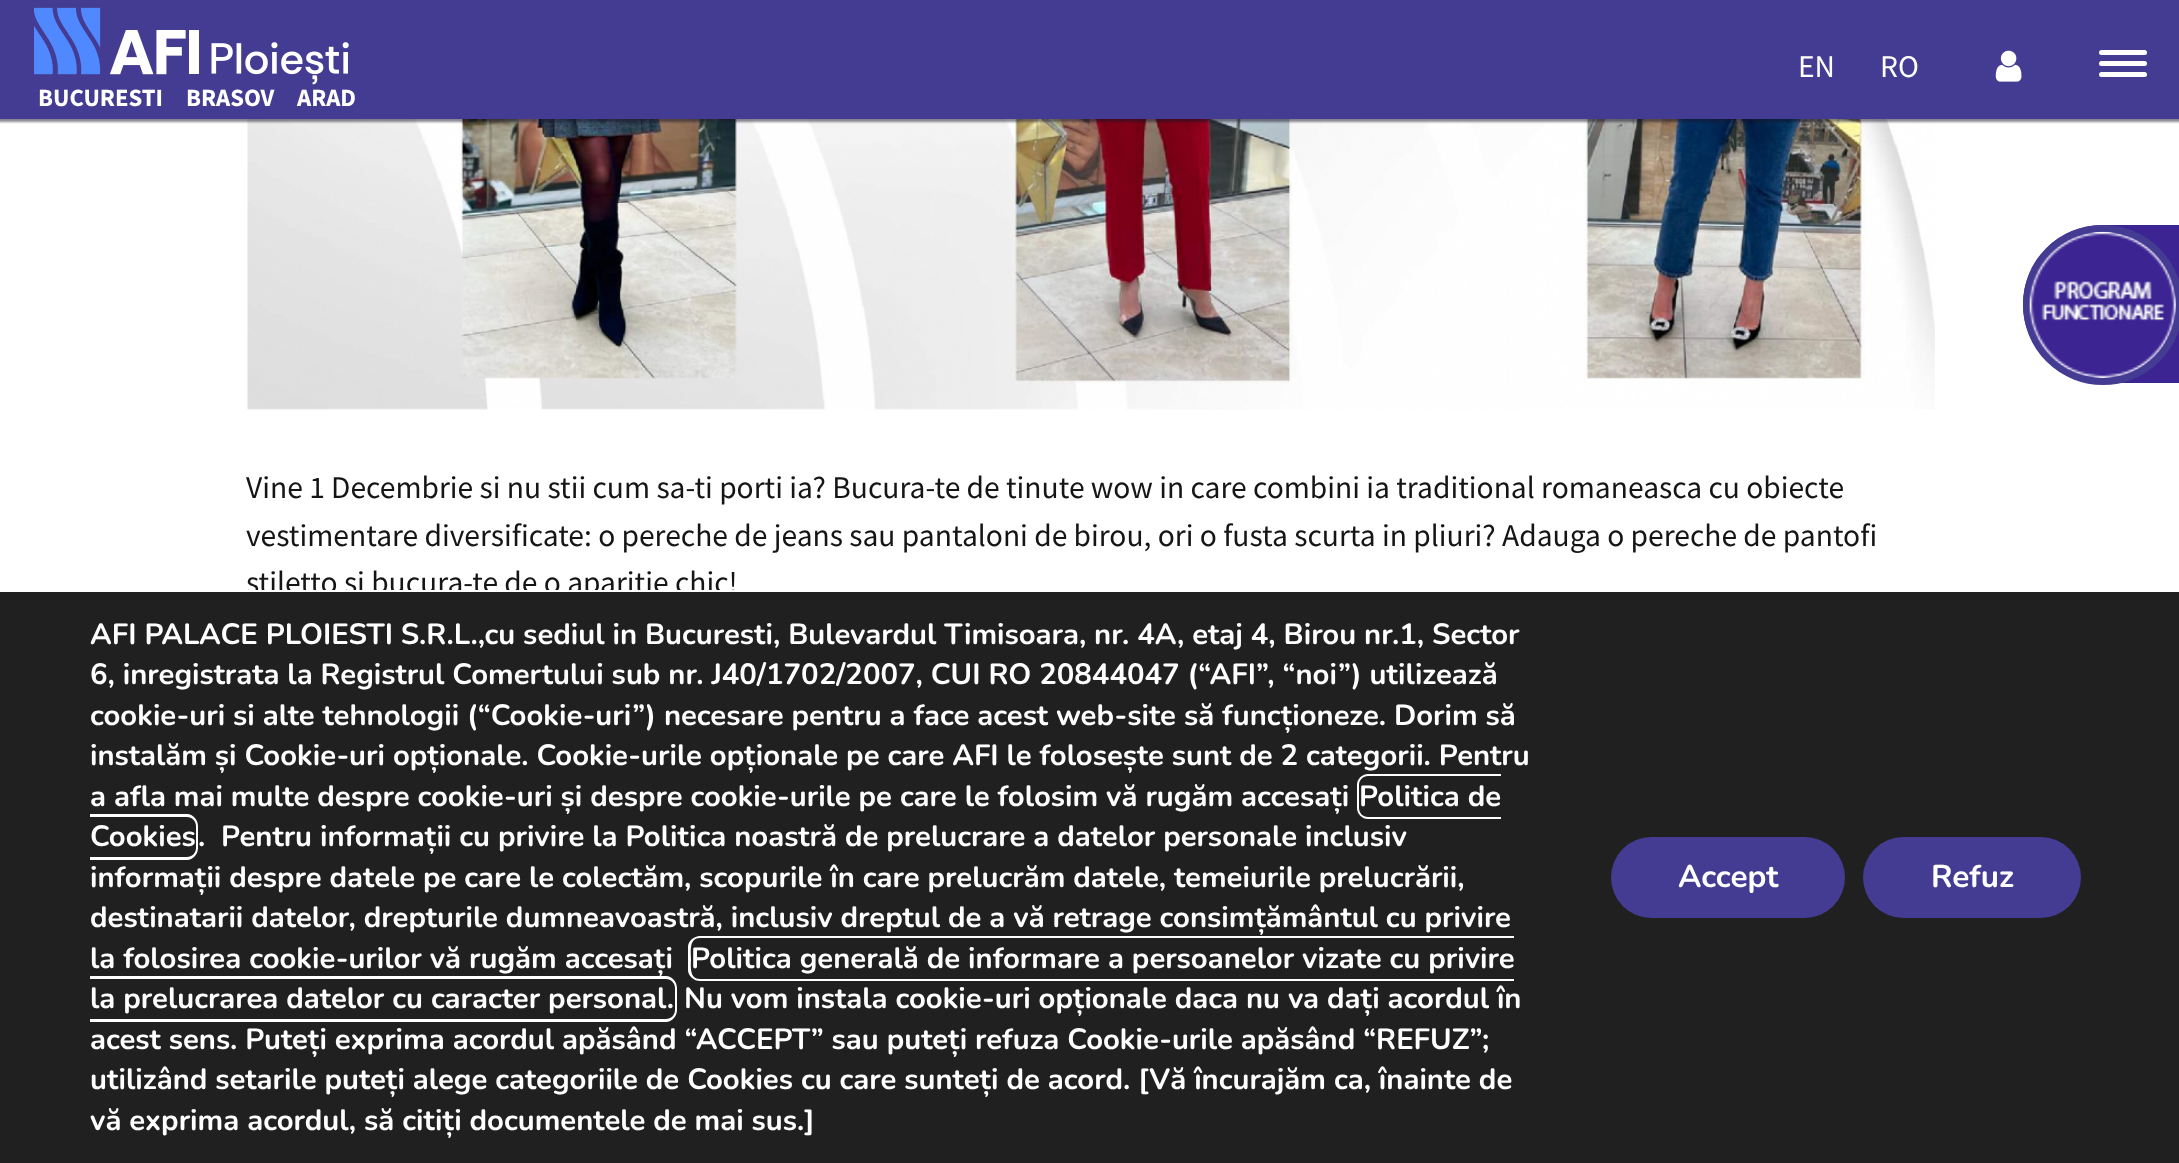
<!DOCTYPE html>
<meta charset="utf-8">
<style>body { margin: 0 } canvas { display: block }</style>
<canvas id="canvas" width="2179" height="1163"></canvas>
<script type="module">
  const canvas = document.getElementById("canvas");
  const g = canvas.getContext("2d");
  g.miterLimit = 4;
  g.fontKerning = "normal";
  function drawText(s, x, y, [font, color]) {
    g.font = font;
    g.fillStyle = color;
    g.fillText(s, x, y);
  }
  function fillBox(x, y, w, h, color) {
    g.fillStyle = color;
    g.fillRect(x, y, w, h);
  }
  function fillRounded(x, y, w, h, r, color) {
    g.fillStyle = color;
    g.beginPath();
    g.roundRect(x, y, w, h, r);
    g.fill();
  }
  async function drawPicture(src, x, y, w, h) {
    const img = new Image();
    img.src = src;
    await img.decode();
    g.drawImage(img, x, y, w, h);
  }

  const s1 = ["31.5px Source Sans Pro", "#FFFFFF"];
  const s2 = ["bold 24.75px Source Sans Pro", "#FFFFFF"];
  const s3 = ["31.5px Source Sans Pro", "#151515"];
  const s4 = ["bold 29.25px Nunito", "#FFFFFF"];
  const s5 = ["bold 31.5px Nunito", "#FFFFFF"];

  fillBox(0, 0, 2179, 1163, "#FFFFFF");
  await drawPicture("pic4.png", 247, 119, 1688, 291);
  g.fillStyle = "rgba(22, 20, 40, 0.5)";
  g.filter = "blur(1px)";
  g.beginPath();
  g.rect(-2, -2, 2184, 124);
  g.fill();
  g.filter = "none";
  fillBox(0, 0, 2179, 119, "#443C92");
  drawText("EN", 1798, 77, s1);
  drawText("RO", 1880, 77, s1);
  await drawPicture("pic1.png", 1995, 50, 27, 32);
  fillRounded(2099, 50, 48, 5, 2.5, "#FFFFFF");
  fillRounded(2099, 61, 48, 5, 2.5, "#FFFFFF");
  fillRounded(2099, 72, 48, 5, 2.5, "#FFFFFF");
  await drawPicture("pic2.png", 34, 7, 315, 78);
  drawText("BUCURESTI", 38, 106, s2);
  drawText("BRASOV", 186, 106, s2);
  drawText("ARAD", 297, 106, s2);
  fillRounded(2023, 225, 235, 158, 79, "#3C2493");
  g.beginPath();
  g.arc(2103, 305, 76.5, 0, Math.PI * 2);
  g.strokeStyle = "#443C92";
  g.lineWidth = 7;
  g.stroke();
  await drawPicture("pic3.png", 2029, 231, 147, 147);
  drawText("Vine 1 Decembrie si nu stii cum sa-ti porti ia? Bucura-te de tinute wow in care combini ia traditional romaneasca cu obiecte", 246, 498, s3);
  drawText("vestimentare diversificate: o pereche de jeans sau pantaloni de birou, ori o fusta scurta in pliuri? Adauga o pereche de pantofi", 246, 546, s3);
  drawText("stiletto si bucura-te de o aparitie chic!", 246, 593, s3);
  fillBox(0, 592, 2179, 571, "#202020");
  fillBox(247, 590, 489, 2, "#FFFFFF");
  drawText("AFI PALACE PLOIESTI S.R.L.,cu sediul in Bucuresti, Bulevardul Timisoara, nr. 4A, etaj 4, Birou nr.1, Sector", 90, 644, s4);
  drawText("6, inregistrata la Registrul Comertului sub nr. J40/1702/2007, CUI RO 20844047 (“AFI”, “noi”) utilizează", 90, 684, s4);
  drawText("cookie-uri si alte tehnologii (“Cookie-uri”) necesare pentru a face acest web-site să funcționeze. Dorim să", 90, 725, s4);
  drawText("instalăm și Cookie-uri opționale. Cookie-urile opționale pe care AFI le folosește sunt de 2 categorii. Pentru", 90, 765, s4);
  drawText("a afla mai multe despre cookie-uri și despre cookie-urile pe care le folosim vă rugăm accesați", 90, 806, s4);
  g.beginPath();
  g.moveTo(1368, 774);
  g.lineTo(1501, 774);
  g.lineTo(1501, 819);
  g.lineTo(1368, 819);
  g.bezierCurveTo(1362, 819, 1357, 814, 1357, 808);
  g.lineTo(1357, 785);
  g.bezierCurveTo(1357, 779, 1362, 774, 1368, 774);
  g.closePath();
  g.moveTo(1368, 776);
  g.lineTo(1501, 776);
  g.lineTo(1501, 817);
  g.lineTo(1368, 817);
  g.bezierCurveTo(1363, 817, 1359, 813, 1359, 808);
  g.lineTo(1359, 785);
  g.bezierCurveTo(1359, 780, 1363, 776, 1368, 776);
  g.closePath();
  g.fill("evenodd");
  drawText("Politica de", 1359, 806, s4);
  g.beginPath();
  g.moveTo(90, 814);
  g.lineTo(187, 814);
  g.bezierCurveTo(193, 814, 198, 820, 198, 826);
  g.lineTo(198, 848);
  g.bezierCurveTo(198, 854, 193, 860, 187, 860);
  g.lineTo(90, 860);
  g.closePath();
  g.moveTo(90, 817);
  g.lineTo(187, 817);
  g.bezierCurveTo(192, 817, 196, 821, 196, 826);
  g.lineTo(196, 848);
  g.bezierCurveTo(196, 853, 192, 857, 187, 857);
  g.lineTo(90, 857);
  g.closePath();
  g.fill("evenodd");
  drawText("Cookies", 90, 846, s4);
  drawText(".  Pentru informații cu privire la Politica noastră de prelucrare a datelor personale inclusiv", 198, 846, s4);
  drawText("informații despre datele pe care le colectăm, scopurile în care prelucrăm datele, temeiurile prelucrării,", 90, 887, s4);
  drawText("destinatarii datelor, drepturile dumneavoastră, inclusiv dreptul de a vă retrage consimțământul cu privire", 90, 927, s4);
  drawText("la folosirea cookie-urilor vă rugăm accesați", 90, 968, s4);
  g.beginPath();
  g.moveTo(700, 936);
  g.lineTo(1514, 936);
  g.lineTo(1514, 981);
  g.lineTo(700, 981);
  g.bezierCurveTo(694, 981, 688, 976, 688, 970);
  g.lineTo(688, 947);
  g.bezierCurveTo(688, 941, 694, 936, 700, 936);
  g.closePath();
  g.moveTo(700, 938);
  g.lineTo(1514, 938);
  g.lineTo(1514, 979);
  g.lineTo(700, 979);
  g.bezierCurveTo(689, 979, 691, 966, 691, 958);
  g.bezierCurveTo(691, 951, 689, 938, 700, 938);
  g.closePath();
  g.fill("evenodd");
  drawText("Politica generală de informare a persoanelor vizate cu privire", 691, 968, s4);
  g.beginPath();
  g.moveTo(90, 976);
  g.lineTo(666, 976);
  g.bezierCurveTo(672, 976, 677, 982, 677, 988);
  g.lineTo(677, 1010);
  g.bezierCurveTo(677, 1016, 672, 1022, 666, 1022);
  g.lineTo(90, 1022);
  g.closePath();
  g.moveTo(90, 979);
  g.lineTo(666, 979);
  g.bezierCurveTo(671, 979, 675, 983, 675, 988);
  g.lineTo(675, 1010);
  g.bezierCurveTo(675, 1015, 671, 1019, 666, 1019);
  g.lineTo(90, 1019);
  g.closePath();
  g.fill("evenodd");
  drawText("la prelucrarea datelor cu caracter personal.", 90, 1008, s4);
  drawText("Nu vom instala cookie-uri opționale daca nu va dați acordul în", 684, 1008, s4);
  drawText("acest sens. Puteți exprima acordul apăsând “ACCEPT” sau puteți refuza Cookie-urile apăsând “REFUZ”;", 90, 1049, s4);
  drawText("utilizând setarile puteți alege categoriile de Cookies cu care sunteți de acord. [Vă încurajăm ca, înainte de", 90, 1089, s4);
  drawText("vă exprima acordul, să citiți documentele de mai sus.]", 90, 1130, s4);
  fillRounded(1611, 837, 234, 81, 40.5, "#443C92");
  drawText("Accept", 1678, 887, s5);
  fillRounded(1863, 837, 218, 81, 40.5, "#443C92");
  drawText("Refuz", 1931, 887, s5);
</script>
